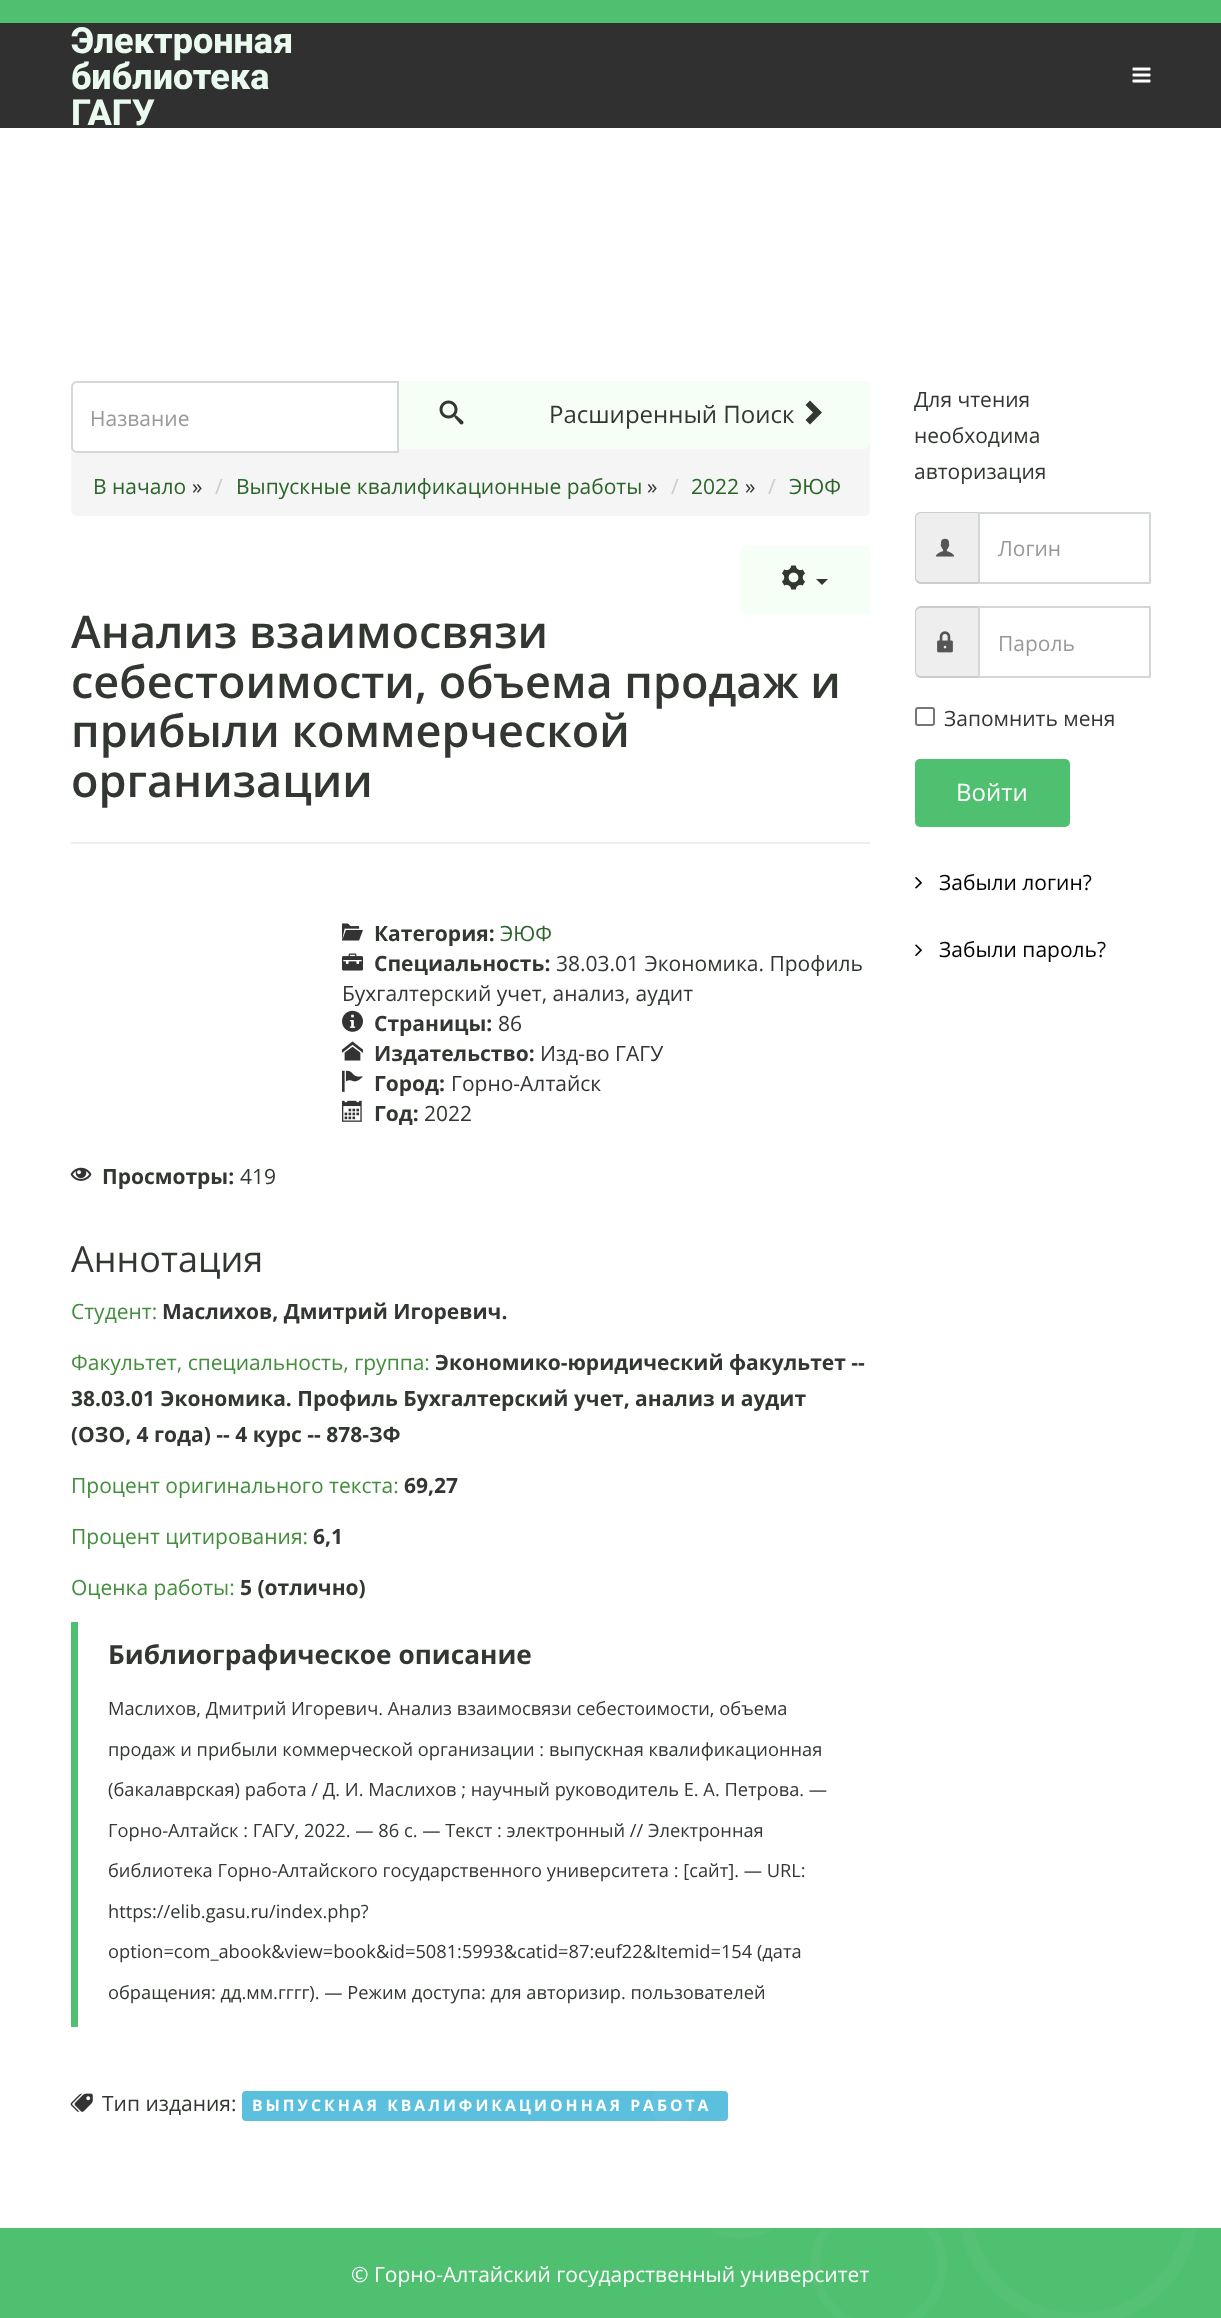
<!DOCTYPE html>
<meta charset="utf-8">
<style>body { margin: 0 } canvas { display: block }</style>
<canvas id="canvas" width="1221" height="2318"></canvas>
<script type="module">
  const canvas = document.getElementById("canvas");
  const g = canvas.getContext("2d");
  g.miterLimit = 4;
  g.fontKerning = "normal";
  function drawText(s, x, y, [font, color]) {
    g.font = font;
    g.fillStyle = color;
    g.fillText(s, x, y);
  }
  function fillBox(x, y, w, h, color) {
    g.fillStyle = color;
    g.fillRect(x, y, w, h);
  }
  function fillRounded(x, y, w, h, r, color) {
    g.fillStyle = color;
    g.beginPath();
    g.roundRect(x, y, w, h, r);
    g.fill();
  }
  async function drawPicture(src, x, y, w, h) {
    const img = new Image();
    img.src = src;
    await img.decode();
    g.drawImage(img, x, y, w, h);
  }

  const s1 = ["800 36px Roboto", "#EAFAEF"];
  const s2 = ["21px Open Sans", "#999999"];
  const s3 = ["24px Open Sans", "#323732"];
  const s4 = ["21px Open Sans", "#2B6428"];
  const s5 = ["21px Open Sans", "#323732"];
  const s6 = ["21px Open Sans", "#CCCCCC"];
  const s7 = ["600 45px Open Sans", "#323732"];
  const s8 = ["bold 21px Open Sans", "#323732"];
  const s9 = ["36px Open Sans", "#323732"];
  const s10 = ["21px Open Sans", "#438E3C"];
  const s11 = ["bold 26.25px Open Sans", "#323732"];
  const s12 = ["18.25px Open Sans", "#323732"];
  const s13 = ["bold 15.75px Open Sans", "#FFFFFF"];
  const s14 = ["24px Open Sans", "#FFFFFF"];
  const s15 = ["21px Open Sans", "#000000"];
  const s16 = ["21px Open Sans", "#FFFFFF"];

  fillBox(0, 0, 1221, 2318, "#FFFFFF");
  fillBox(0, 0, 1221, 23, "#4FBF70");
  fillBox(0, 23, 1221, 105, "#303030");
  drawText("Электронная", 71, 53, s1);
  drawText("библиотека", 71, 89, s1);
  drawText("ГАГУ", 71, 125, s1);
  await drawPicture("pic1.png", 1132, 67, 19, 16);
  fillRounded(71, 381, 799, 135, 6, "#F5F5F5");
  g.fillStyle = "#FFFFFF";
  g.beginPath();
  g.roundRect(72, 382, 326, 70, [5, 0, 0, 5]);
  g.fill();
  g.strokeStyle = "#D4D7D7";
  g.lineWidth = 2;
  g.stroke();
  drawText("Название", 90, 426, s2);
  fillBox(399, 381, 108, 68, "#F6FFF5");
  await drawPicture("pic2.png", 439, 400, 25, 25);
  g.beginPath();
  g.roundRect(507, 381, 363, 68, [0, 6, 6, 0]);
  g.fill();
  drawText("Расширенный Поиск", 549, 423, s3);
  g.beginPath();
  g.moveTo(810, 400.5);
  g.lineTo(822, 412.5);
  g.lineTo(810, 424.5);
  g.lineTo(805.5, 420);
  g.lineTo(813, 412.5);
  g.lineTo(805.5, 405);
  g.closePath();
  g.fill();
  drawText("В начало", 93, 494, s4);
  drawText("»", 192, 494, s5);
  drawText("/", 215, 494, s6);
  drawText("Выпускные квалификационные работы", 236, 494, s4);
  drawText("»", 647, 494, s5);
  drawText("/", 671, 494, s6);
  drawText("2022", 691, 494, s4);
  drawText("»", 745, 494, s5);
  drawText("/", 768, 494, s6);
  drawText("ЭЮФ", 789, 494, s4);
  fillRounded(740, 546, 130, 68, 5, "#F6FFF5");
  await drawPicture("pic3.png", 782, 565, 23, 25);
  g.fillStyle = "#323732";
  g.beginPath();
  g.moveTo(816, 579);
  g.lineTo(828, 579);
  g.lineTo(822, 585);
  g.closePath();
  g.fill();
  fillBox(71, 842, 799, 2, "#EEEEEE");
  drawText("Анализ взаимосвязи", 71, 648, s7);
  drawText("себестоимости, объема продаж и", 71, 698, s7);
  drawText("прибыли коммерческой", 71, 747, s7);
  drawText("организации", 71, 797, s7);
  await drawPicture("pic4.png", 342, 923, 21, 18);
  drawText("Категория:", 374, 941, s8);
  drawText("ЭЮФ", 500, 941, s4);
  await drawPicture("pic5.png", 342, 953, 21, 18);
  drawText("Специальность:", 374, 971, s8);
  drawText("38.03.01 Экономика. Профиль", 556, 971, s5);
  drawText("Бухгалтерский учет, анализ, аудит", 342, 1001, s5);
  await drawPicture("pic6.png", 342, 1010, 21, 22);
  drawText("Страницы:", 374, 1031, s8);
  drawText("86", 498, 1031, s5);
  await drawPicture("pic7.png", 342, 1041, 21, 20);
  drawText("Издательство:", 374, 1061, s8);
  drawText("Изд-во ГАГУ", 540, 1061, s5);
  await drawPicture("pic8.png", 342, 1070, 21, 22);
  drawText("Город:", 374, 1091, s8);
  drawText("Горно-Алтайск", 451, 1091, s5);
  await drawPicture("pic9.png", 342, 1100, 20, 22);
  drawText("Год:", 374, 1121, s8);
  drawText("2022", 424, 1121, s5);
  await drawPicture("pic10.png", 70, 1167, 22, 14);
  drawText("Просмотры:", 102, 1184, s8);
  drawText("419", 240, 1184, s5);
  drawText("Аннотация", 71, 1272, s9);
  drawText("Студент:", 71, 1319, s10);
  drawText("Маслихов, Дмитрий Игоревич.", 162, 1319, s8);
  drawText("Факультет, специальность, группа:", 71, 1370, s10);
  drawText("Экономико-юридический факультет --", 435, 1370, s8);
  drawText("38.03.01 Экономика. Профиль Бухгалтерский учет, анализ и аудит", 71, 1406, s8);
  drawText("(ОЗО, 4 года) -- 4 курс -- 878-ЗФ", 71, 1442, s8);
  drawText("Процент оригинального текста:", 71, 1493, s10);
  drawText("69,27", 404, 1493, s8);
  drawText("Процент цитирования:", 71, 1544, s10);
  drawText("6,1", 313, 1544, s8);
  drawText("Оценка работы:", 71, 1595, s10);
  drawText("5 (отлично)", 240, 1595, s8);
  fillBox(71, 1622, 7, 405, "#4FBF70");
  drawText("Библиографическое описание", 108, 1664, s11);
  drawText("Маслихов, Дмитрий Игоревич. Анализ взаимосвязи себестоимости, объема", 108, 1715, s12);
  drawText("продаж и прибыли коммерческой организации : выпускная квалификационная", 108, 1756, s12);
  drawText("(бакалаврская) работа / Д. И. Маслихов ; научный руководитель Е. А. Петрова. —", 108, 1796, s12);
  drawText("Горно-Алтайск : ГАГУ, 2022. — 86 с. — Текст : электронный // Электронная", 108, 1837, s12);
  drawText("библиотека Горно-Алтайского государственного университета : [сайт]. — URL:", 108, 1877, s12);
  drawText("https://elib.gasu.ru/index.php?", 108, 1918, s12);
  drawText("option=com_abook&view=book&id=5081:5993&catid=87:euf22&Itemid=154 (дата", 108, 1958, s12);
  drawText("обращения: дд.мм.гггг). — Режим доступа: для авторизир. пользователей", 108, 1999, s12);
  await drawPicture("pic11.png", 70, 2093, 23, 19);
  drawText("Тип издания:", 102, 2111, s5);
  fillRounded(242, 2091, 486, 30, 4, "#5BC0DE");
  g.letterSpacing = "3px";
  drawText("ВЫПУСКНАЯ КВАЛИФИКАЦИОННАЯ РАБОТА", 252, 2111, s13);
  g.letterSpacing = "0px";
  drawText("Для чтения", 914, 407, s5);
  drawText("необходима", 914, 443, s5);
  drawText("авторизация", 914, 479, s5);
  g.fillStyle = "#EEEEEE";
  g.beginPath();
  g.roundRect(915, 512, 63, 72, [6, 0, 0, 6]);
  g.fill();
  g.fillStyle = "#CCCCCC";
  g.beginPath();
  g.moveTo(921, 512);
  g.lineTo(978, 512);
  g.lineTo(978, 584);
  g.lineTo(921, 584);
  g.bezierCurveTo(918, 584, 915, 581, 915, 578);
  g.lineTo(915, 518);
  g.bezierCurveTo(915, 514, 918, 512, 921, 512);
  g.closePath();
  g.moveTo(921, 513);
  g.lineTo(978, 513);
  g.lineTo(978, 582);
  g.lineTo(921, 582);
  g.bezierCurveTo(919, 582, 916, 580, 916, 578);
  g.lineTo(916, 518);
  g.bezierCurveTo(916, 515, 919, 513, 921, 513);
  g.closePath();
  g.fill("evenodd");
  await drawPicture("pic12.png", 935, 538, 20, 19);
  g.beginPath();
  g.roundRect(979, 513, 171, 70, [0, 0.5, 0.5, 0]);
  g.stroke();
  drawText("Логин", 998, 556, s2);
  g.fillStyle = "#EEEEEE";
  g.beginPath();
  g.roundRect(915, 606, 63, 72, [6, 0, 0, 6]);
  g.fill();
  g.fillStyle = "#CCCCCC";
  g.beginPath();
  g.moveTo(921, 606);
  g.lineTo(978, 606);
  g.lineTo(978, 678);
  g.lineTo(921, 678);
  g.bezierCurveTo(918, 678, 915, 675, 915, 672);
  g.lineTo(915, 612);
  g.bezierCurveTo(915, 609, 918, 606, 921, 606);
  g.closePath();
  g.moveTo(921, 608);
  g.lineTo(978, 608);
  g.lineTo(978, 676);
  g.lineTo(921, 676);
  g.bezierCurveTo(919, 676, 916, 674, 916, 672);
  g.lineTo(916, 612);
  g.bezierCurveTo(916, 610, 919, 608, 921, 608);
  g.closePath();
  g.fill("evenodd");
  await drawPicture("pic13.png", 937, 631, 16, 22);
  g.beginPath();
  g.roundRect(979, 607, 171, 70, [0, 0.5, 0.5, 0]);
  g.stroke();
  drawText("Пароль", 998, 651, s2);
  g.beginPath();
  g.roundRect(916, 708, 18, 17, 2);
  g.strokeStyle = "#767676";
  g.stroke();
  drawText("Запомнить меня", 944, 726, s5);
  fillRounded(915, 759, 155, 68, 5, "#4FBF70");
  drawText("Войти", 956, 801, s14);
  await drawPicture("pic14.png", 915, 877, 7, 12);
  drawText("Забыли логин?", 939, 890, s15);
  await drawPicture("pic15.png", 915, 944, 7, 12);
  drawText("Забыли пароль?", 939, 957, s15);
  fillBox(0, 2228, 1221, 90, "#4FBF70");
  drawText("© Горно-Алтайский государственный университет", 351, 2282, s16);
  await drawPicture("pic16.png", 652, 2091, 545, 227);
</script>
